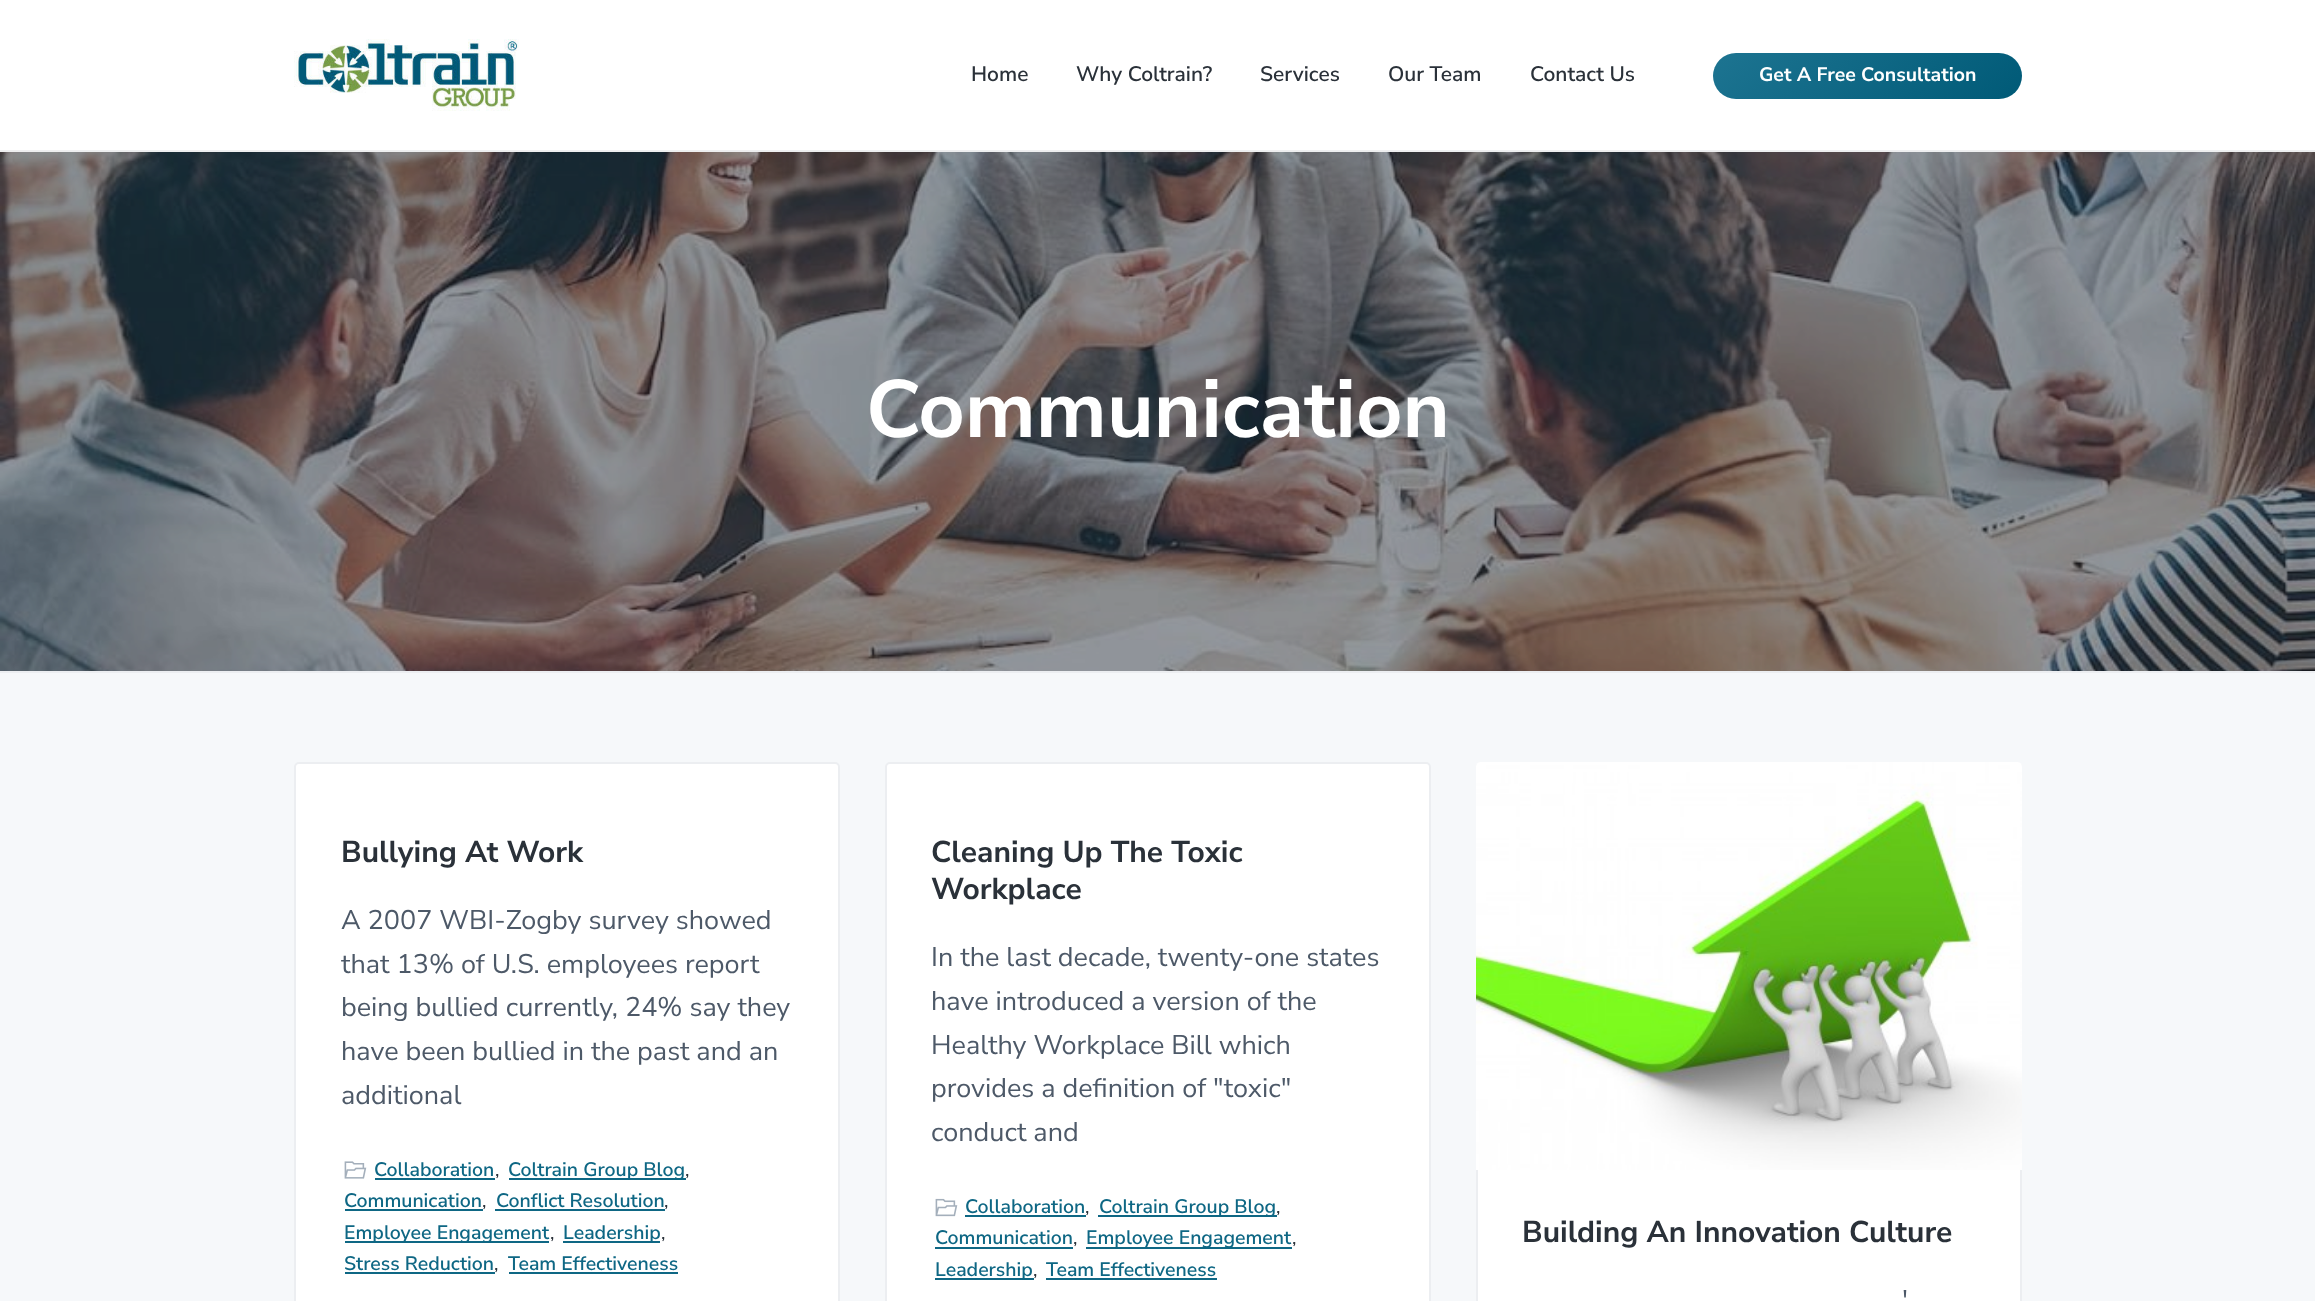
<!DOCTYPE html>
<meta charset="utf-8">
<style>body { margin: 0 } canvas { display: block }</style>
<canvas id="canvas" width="2315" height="1301"></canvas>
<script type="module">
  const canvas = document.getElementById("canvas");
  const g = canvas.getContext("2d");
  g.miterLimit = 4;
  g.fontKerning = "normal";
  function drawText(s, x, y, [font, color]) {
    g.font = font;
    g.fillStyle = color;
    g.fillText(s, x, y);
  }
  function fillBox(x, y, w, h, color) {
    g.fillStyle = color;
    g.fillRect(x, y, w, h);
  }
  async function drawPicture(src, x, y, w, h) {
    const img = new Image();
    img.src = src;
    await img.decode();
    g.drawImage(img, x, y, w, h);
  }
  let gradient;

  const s1 = ["600 21px Nunito Sans", "#2A3139"];
  const s2 = ["bold 19.5px Nunito Sans", "#FFFFFF"];
  const s3 = ["bold 81px Nunito Sans", "#FFFFFF"];
  const s4 = ["bold 30px Nunito Sans", "#2A3139"];
  const s5 = ["27px Nunito Sans", "#4D5968"];
  const s6 = ["600 19.5px Nunito Sans", "#0E6784"];
  const s7 = ["19.5px Nunito Sans", "#2A3139"];

  fillBox(0, 0, 2315, 1301, "#F6F8FA");
  fillBox(0, 0, 2315, 150, "#FFFFFF");
  fillBox(0, 150, 2315, 2, "#EEEFF0");
  await drawPicture("pic1.png", 294, 39, 225, 72);
  drawText("Home", 971, 81, s1);
  drawText("Why Coltrain?", 1076, 81, s1);
  drawText("Services", 1260, 81, s1);
  drawText("Our Team", 1388, 81, s1);
  drawText("Contact Us", 1530, 81, s1);
  gradient = g.createLinearGradient(1779, -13, 1956, 165);
  gradient.addColorStop(0, "#1D7491");
  gradient.addColorStop(1, "#005A77");
  g.fillStyle = gradient;
  g.beginPath();
  g.roundRect(1713, 53, 309, 46, 23);
  g.fill();
  drawText("Get A Free Consultation", 1759, 81, s2);
  await drawPicture("pic2.png", 0, 152, 2315, 519);
  fillBox(0, 671, 2315, 2, "#ECEEF1");
  drawText("Communication", 866, 437, s3);
  g.beginPath();
  g.roundRect(295, 763, 544, 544, 4);
  g.fill();
  g.strokeStyle = "#ECEEF1";
  g.lineWidth = 2;
  g.stroke();
  drawText("Bullying At Work", 341, 862, s4);
  drawText("A 2007 WBI-Zogby survey showed", 341, 929, s5);
  drawText("that 13% of U.S. employees report", 341, 973, s5);
  drawText("being bullied currently, 24% say they", 341, 1016, s5);
  drawText("have been bullied in the past and an", 341, 1060, s5);
  drawText("additional", 341, 1104, s5);
  await drawPicture("pic3.png", 344, 1161, 23, 18);
  drawText("Collaboration", 374, 1176, s6);
  fillBox(375, 1178, 120, 2, "#0E6784");
  drawText(",", 495, 1176, s7);
  fillBox(509, 1178, 177, 2, "#0E6784");
  drawText("Coltrain Group Blog", 508, 1176, s6);
  drawText(",", 685, 1176, s7);
  drawText("Communication", 344, 1207, s6);
  fillBox(345, 1209, 138, 2, "#0E6784");
  drawText(",", 482, 1207, s7);
  drawText("Conflict Resolution", 496, 1207, s6);
  fillBox(495, 1209, 170, 2, "#0E6784");
  drawText(",", 664, 1207, s7);
  fillBox(345, 1241, 204, 2, "#0E6784");
  drawText("Employee Engagement", 344, 1239, s6);
  drawText(",", 550, 1239, s7);
  fillBox(563, 1241, 97, 2, "#0E6784");
  drawText("Leadership", 563, 1239, s6);
  drawText(",", 661, 1239, s7);
  drawText("Stress Reduction", 344, 1270, s6);
  fillBox(345, 1272, 150, 2, "#0E6784");
  drawText(",", 494, 1270, s7);
  drawText("Team Effectiveness", 508, 1270, s6);
  fillBox(509, 1272, 169, 2, "#0E6784");
  g.fillStyle = "#FFFFFF";
  g.beginPath();
  g.roundRect(886, 763, 544, 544, 4);
  g.fill();
  g.stroke();
  drawText("Cleaning Up The Toxic", 931, 862, s4);
  drawText("Workplace", 931, 899, s4);
  drawText("In the last decade, twenty-one states", 931, 966, s5);
  drawText("have introduced a version of the", 931, 1010, s5);
  drawText("Healthy Workplace Bill which", 931, 1054, s5);
  drawText("provides a definition of \"toxic\"", 931, 1097, s5);
  drawText("conduct and", 931, 1141, s5);
  await drawPicture("pic4.png", 935, 1198, 23, 19);
  drawText("Collaboration", 965, 1213, s6);
  fillBox(965, 1215, 121, 2, "#0E6784");
  drawText(",", 1085, 1213, s7);
  fillBox(1098, 1215, 179, 2, "#0E6784");
  drawText("Coltrain Group Blog", 1099, 1213, s6);
  drawText(",", 1276, 1213, s7);
  drawText("Communication", 935, 1244, s6);
  fillBox(935, 1247, 138, 2, "#0E6784");
  drawText(",", 1073, 1244, s7);
  fillBox(1086, 1247, 206, 2, "#0E6784");
  drawText("Employee Engagement", 1086, 1244, s6);
  drawText(",", 1292, 1244, s7);
  fillBox(935, 1278, 99, 2, "#0E6784");
  drawText("Leadership", 935, 1276, s6);
  drawText(",", 1033, 1276, s7);
  drawText("Team Effectiveness", 1046, 1276, s6);
  fillBox(1046, 1278, 171, 2, "#0E6784");
  g.fillStyle = "#FFFFFF";
  g.beginPath();
  g.roundRect(1477, 763, 544, 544, 4);
  g.fill();
  g.stroke();
  await drawPicture("pic5.png", 1476, 762, 546, 408);
  drawText("Building An Innovation Culture", 1522, 1242, s4);
  drawText("'", 1902, 1309, s5);
</script>
